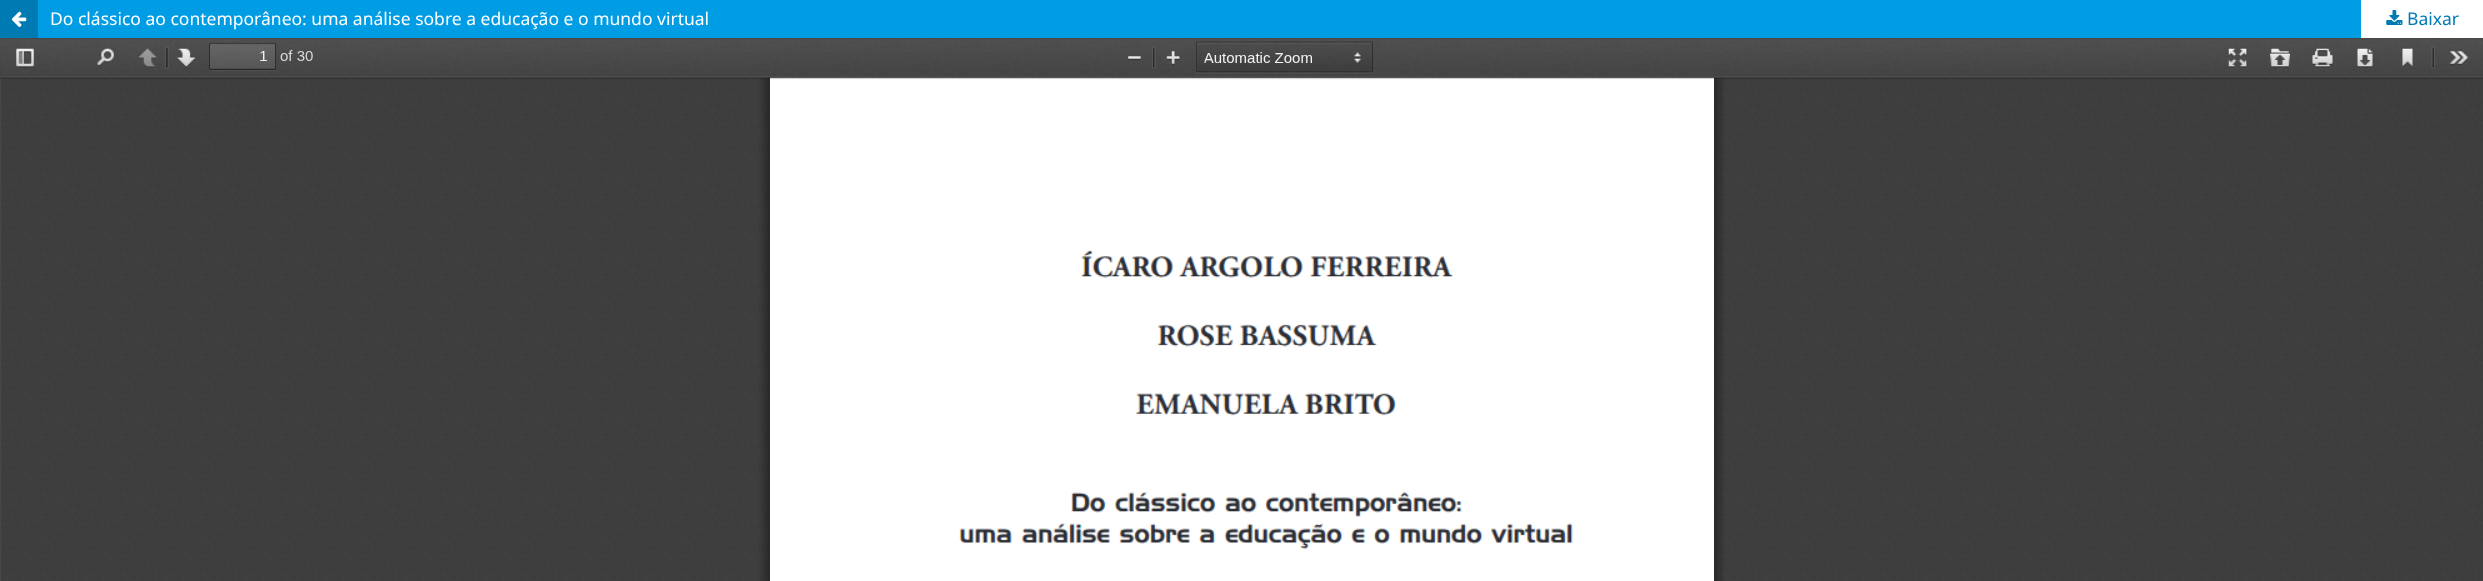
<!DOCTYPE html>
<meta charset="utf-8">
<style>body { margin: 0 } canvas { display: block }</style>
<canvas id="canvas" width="2483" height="581"></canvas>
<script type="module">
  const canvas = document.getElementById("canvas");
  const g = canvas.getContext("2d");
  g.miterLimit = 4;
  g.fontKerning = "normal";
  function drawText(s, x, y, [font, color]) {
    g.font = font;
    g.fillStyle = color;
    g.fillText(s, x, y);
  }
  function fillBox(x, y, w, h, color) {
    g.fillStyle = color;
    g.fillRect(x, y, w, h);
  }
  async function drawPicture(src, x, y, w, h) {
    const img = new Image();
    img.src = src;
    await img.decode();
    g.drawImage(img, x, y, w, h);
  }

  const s1 = ["17.5px Noto Sans", "#FFFFFF"];
  const s2 = ["17.5px Noto Sans", "#007AB2"];

  fillBox(0, 0, 2483, 581, "#FFFFFF");
  fillBox(38, 0, 2323, 38, "#009DE5");
  fillBox(0, 0, 38, 38, "#007AB2");
  await drawPicture("pic1.png", 11, 11, 16, 16);
  drawText("Do clássico ao contemporâneo: uma análise sobre a educação e o mundo virtual", 50, 25, s1);
  await drawPicture("pic2.png", 2386, 10, 17, 15);
  drawText("Baixar", 2407, 25, s2);
  await drawPicture("pic3.png", 0, 38, 2483, 543);
</script>
